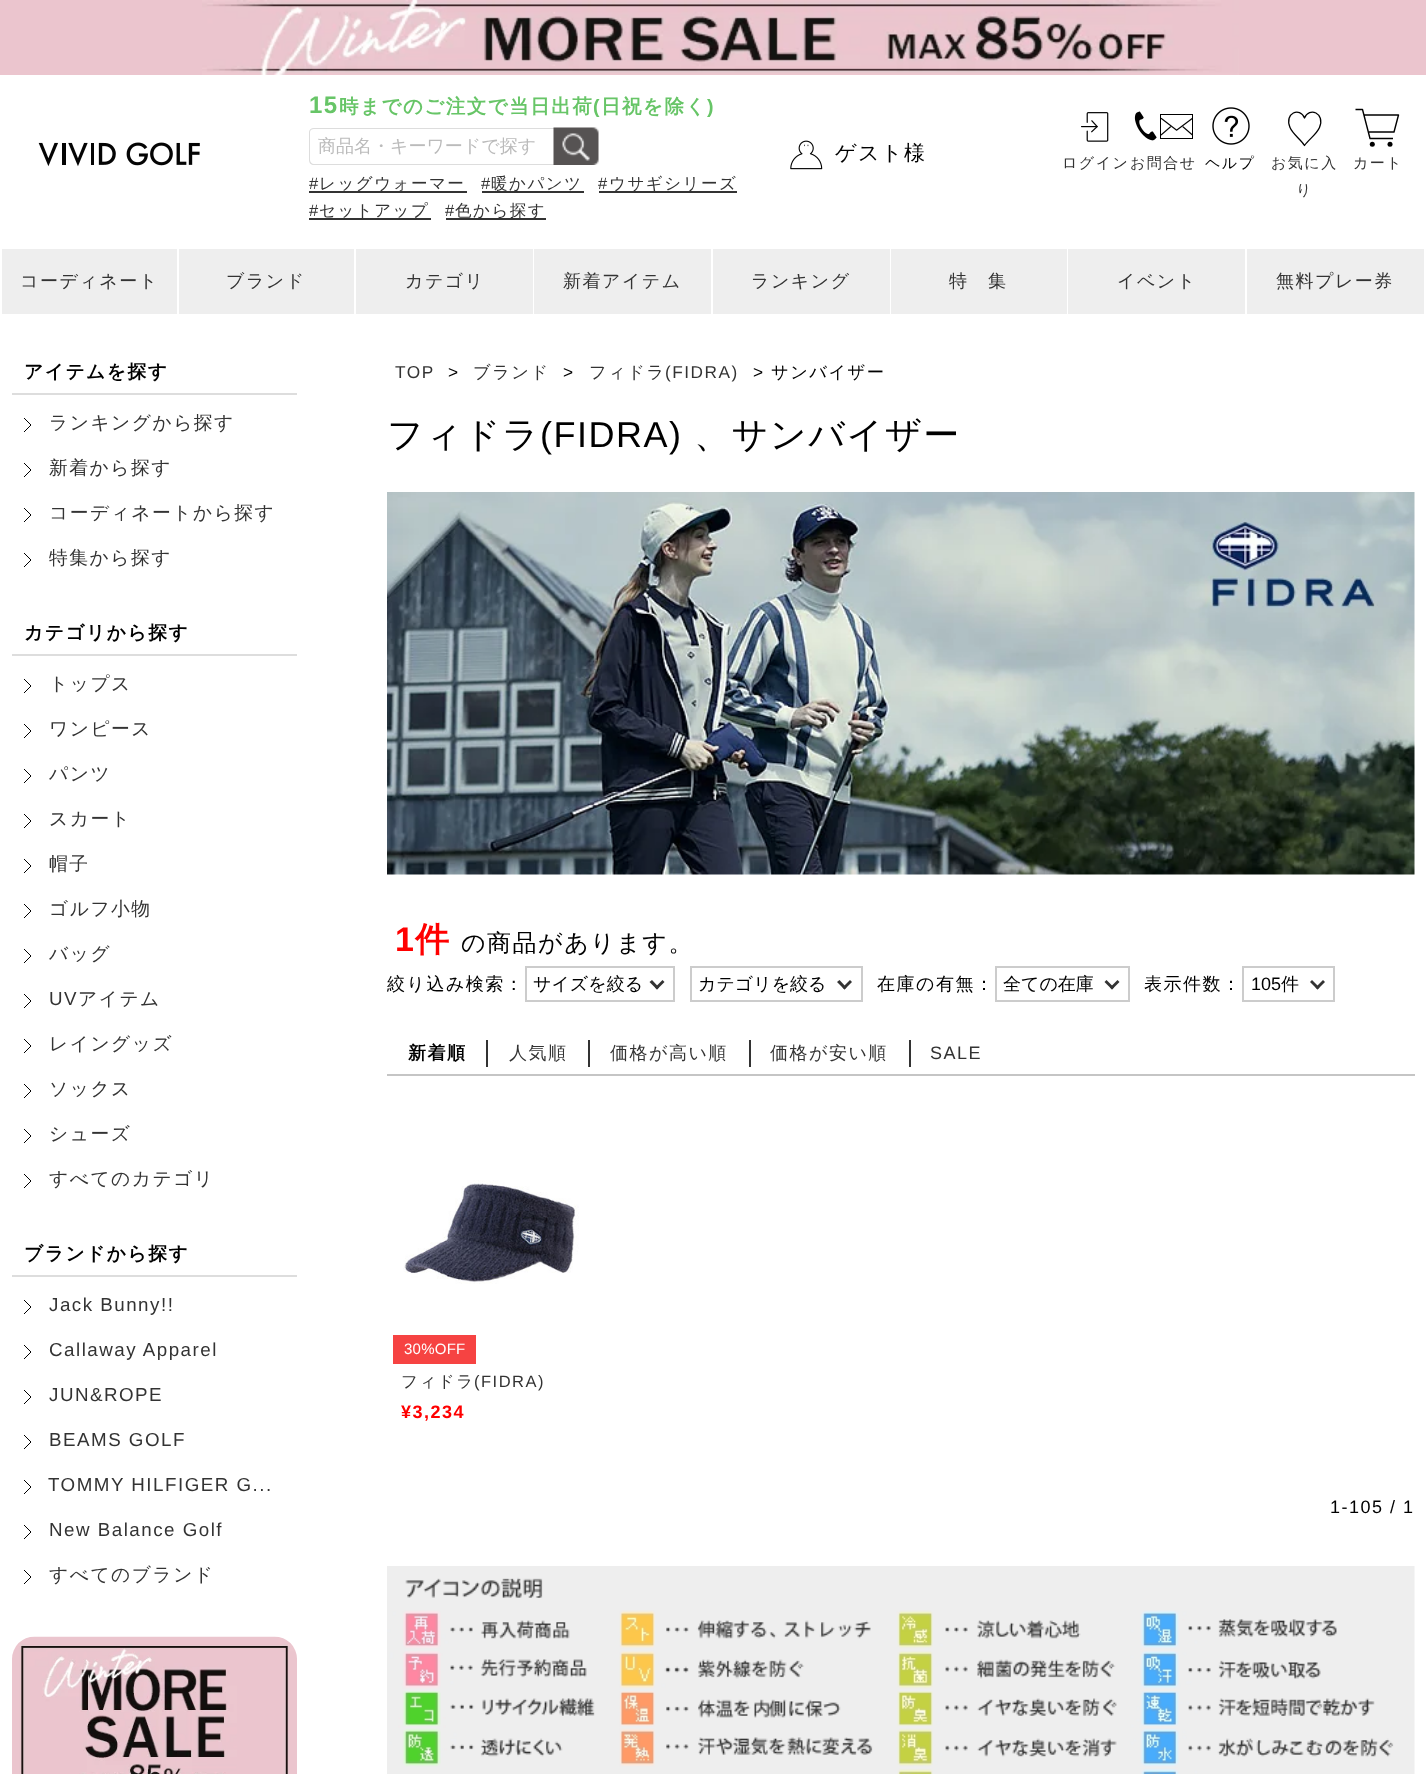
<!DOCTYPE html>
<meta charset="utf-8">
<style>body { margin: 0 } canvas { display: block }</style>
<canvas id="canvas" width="1426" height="1774"></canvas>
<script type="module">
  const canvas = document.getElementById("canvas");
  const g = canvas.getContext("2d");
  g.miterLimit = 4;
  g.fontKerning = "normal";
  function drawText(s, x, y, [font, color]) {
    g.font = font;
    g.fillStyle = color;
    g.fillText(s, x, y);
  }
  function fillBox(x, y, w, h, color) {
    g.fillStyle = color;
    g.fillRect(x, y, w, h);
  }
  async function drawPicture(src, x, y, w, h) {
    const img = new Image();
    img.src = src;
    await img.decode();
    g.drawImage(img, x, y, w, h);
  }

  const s1 = ["bold 24px Liberation Sans", "#67C567"];
  const s2 = ["bold 19.5px WenQuanYi Zen Hei", "#67C567"];
  const s3 = ["bold 19.5px Liberation Sans", "#67C567"];
  const s4 = ["500 18px WenQuanYi Zen Hei", "#BBBBBB"];
  const s5 = ["16.5px Liberation Sans", "#333333"];
  const s6 = ["500 16.5px WenQuanYi Zen Hei", "#333333"];
  const s7 = ["500 21px WenQuanYi Zen Hei", "#000000"];
  const s8 = ["500 15px WenQuanYi Zen Hei", "#333333"];
  const s9 = ["500 15px WenQuanYi Zen Hei", "#000000"];
  const s10 = ["500 18px WenQuanYi Zen Hei", "#333333"];
  const s11 = ["bold 18.75px WenQuanYi Zen Hei", "#000000"];
  const s12 = ["500 18.75px WenQuanYi Zen Hei", "#333333"];
  const s13 = ["18.75px Liberation Sans", "#333333"];
  const s14 = ["17.25px Liberation Sans", "#333333"];
  const s15 = ["17.25px Liberation Sans", "#000000"];
  const s16 = ["500 17.25px WenQuanYi Zen Hei", "#333333"];
  const s17 = ["500 17.25px WenQuanYi Zen Hei", "#000000"];
  const s18 = ["500 36px WenQuanYi Zen Hei", "#000000"];
  const s19 = ["36px Liberation Sans", "#000000"];
  const s20 = ["bold 34px Liberation Sans", "#FF0000"];
  const s21 = ["bold 34px WenQuanYi Zen Hei", "#FF0000"];
  const s22 = ["500 24px WenQuanYi Zen Hei", "#000000"];
  const s23 = ["500 18px WenQuanYi Zen Hei", "#000000"];
  const s24 = ["18px Liberation Sans", "#000000"];
  const s25 = ["bold 18px WenQuanYi Zen Hei", "#000000"];
  const s26 = ["18px Liberation Sans", "#333333"];
  const s27 = ["15px Liberation Sans", "#FFFFFF"];
  const s28 = ["bold 18px Liberation Sans", "#FF0000"];

  fillBox(0, 0, 1426, 1774, "#FFFFFF");
  fillBox(0, 0, 1426, 75, "#EBC5CE");
  await drawPicture("pic1.png", 202, 0, 1037, 75);
  await drawPicture("pic2.png", 38, 142, 162, 25);
  g.letterSpacing = "1.5px";
  drawText("15", 309, 113, s1);
  drawText("時までのご注文で当日出荷", 339, 113, s2);
  drawText("(", 593, 113, s3);
  drawText("日祝を除く", 601, 113, s2);
  drawText(")", 707, 113, s3);
  g.fillStyle = "#DDDDDD";
  g.beginPath();
  g.moveTo(314, 128);
  g.lineTo(554, 128);
  g.lineTo(554, 165);
  g.lineTo(314, 165);
  g.bezierCurveTo(311, 165, 309, 163, 309, 160);
  g.lineTo(309, 132);
  g.bezierCurveTo(309, 130, 311, 128, 314, 128);
  g.closePath();
  g.moveTo(314, 129);
  g.lineTo(554, 129);
  g.lineTo(554, 164);
  g.lineTo(314, 164);
  g.bezierCurveTo(312, 164, 310, 162, 310, 160);
  g.lineTo(310, 132);
  g.bezierCurveTo(310, 130, 312, 129, 314, 129);
  g.closePath();
  g.fill("evenodd");
  g.letterSpacing = "0px";
  drawText("商品名・キーワードで探す", 318, 152, s4);
  await drawPicture("pic3.png", 553, 127, 46, 38);
  g.letterSpacing = "1.5px";
  drawText("#", 309, 189, s5);
  fillBox(309, 191, 158, 2, "#333333");
  drawText("レッグウォーマー", 319, 189, s6);
  drawText("#", 481, 189, s5);
  fillBox(482, 191, 102, 2, "#333333");
  drawText("暖かパンツ", 491, 189, s6);
  drawText("#", 598, 189, s5);
  fillBox(599, 191, 138, 2, "#333333");
  drawText("ウサギシリーズ", 609, 189, s6);
  drawText("#", 309, 216, s5);
  fillBox(309, 218, 122, 2, "#333333");
  drawText("セットアップ", 319, 216, s6);
  drawText("#", 445, 216, s5);
  fillBox(446, 218, 100, 2, "#333333");
  drawText("色から探す", 455, 216, s6);
  await drawPicture("pic4.png", 790, 140, 33, 30);
  drawText("ゲスト様", 835, 160, s7);
  await drawPicture("pic5.png", 1081, 112, 28, 30);
  drawText("ログイン", 1062, 168, s8);
  await drawPicture("pic6.png", 1134, 111, 59, 30);
  drawText("お問合せ", 1130, 168, s8);
  await drawPicture("pic7.png", 1212, 107, 38, 38);
  drawText("ヘルプ", 1205, 168, s9);
  g.beginPath();
  g.moveTo(1304.5, 118);
  g.bezierCurveTo(1309, 106.5, 1325.5, 113, 1319.5, 127.5);
  g.bezierCurveTo(1316.5, 134.5, 1309, 139, 1304.5, 145.5);
  g.bezierCurveTo(1300.5, 139, 1293, 134.5, 1290, 127.5);
  g.bezierCurveTo(1284, 113, 1300, 106.5, 1304.5, 118);
  g.closePath();
  g.strokeStyle = "#000000";
  g.lineWidth = 1.3;
  g.lineJoin = "round";
  g.stroke();
  drawText("お気に入", 1271, 168, s8);
  drawText("り", 1296, 195, s8);
  g.beginPath();
  g.moveTo(1355.5, 109.5);
  g.lineTo(1362.5, 109.5);
  g.lineTo(1370, 138.5);
  g.lineTo(1393, 138.5);
  g.moveTo(1364.5, 115);
  g.lineTo(1398.5, 115);
  g.lineTo(1394, 132);
  g.lineTo(1369, 132);
  g.lineWidth = 1.4;
  g.stroke();
  g.fillStyle = "#000000";
  g.beginPath();
  g.arc(1372.3, 144.3, 2.5, 0, Math.PI * 2);
  g.fill();
  g.beginPath();
  g.arc(1390, 144.3, 2.5, 0, Math.PI * 2);
  g.fill();
  drawText("カート", 1353, 168, s8);
  fillBox(2, 249, 1422, 65, "#EEEEEE");
  fillBox(177, 249, 2, 65, "#FFFFFF");
  drawText("コーディネート", 20, 287, s10);
  fillBox(354, 249, 2, 65, "#FFFFFF");
  drawText("ブランド", 226, 287, s10);
  fillBox(533, 249, 1, 65, "#FFFFFF");
  drawText("カテゴリ", 405, 287, s10);
  fillBox(711, 249, 2, 65, "#FFFFFF");
  drawText("新着アイテム", 563, 287, s10);
  fillBox(890, 249, 1, 65, "#FFFFFF");
  drawText("ランキング", 751, 287, s10);
  fillBox(1067, 249, 1, 65, "#FFFFFF");
  drawText("特　集", 949, 287, s10);
  fillBox(1245, 249, 2, 65, "#FFFFFF");
  drawText("イベント", 1117, 287, s10);
  drawText("無料プレー券", 1276, 287, s10);
  fillBox(12, 393, 285, 2, "#DDDDDD");
  drawText("アイテムを探す", 24, 378, s11);
  g.beginPath();
  g.moveTo(24, 418);
  g.lineTo(31, 425);
  g.lineTo(24, 432);
  g.lineWidth = 1;
  g.stroke();
  drawText("ランキングから探す", 49, 429, s12);
  g.beginPath();
  g.moveTo(24, 463);
  g.lineTo(31, 470);
  g.lineTo(24, 477);
  g.stroke();
  drawText("新着から探す", 49, 474, s12);
  g.beginPath();
  g.moveTo(24, 508);
  g.lineTo(31, 515);
  g.lineTo(24, 522);
  g.stroke();
  drawText("コーディネートから探す", 49, 519, s12);
  g.beginPath();
  g.moveTo(24, 553);
  g.lineTo(31, 560);
  g.lineTo(24, 567);
  g.stroke();
  drawText("特集から探す", 49, 564, s12);
  fillBox(12, 654, 285, 2, "#DDDDDD");
  drawText("カテゴリから探す", 24, 639, s11);
  g.beginPath();
  g.moveTo(24, 679);
  g.lineTo(31, 686);
  g.lineTo(24, 693);
  g.stroke();
  drawText("トップス", 49, 690, s12);
  g.beginPath();
  g.moveTo(24, 724);
  g.lineTo(31, 731);
  g.lineTo(24, 738);
  g.stroke();
  drawText("ワンピース", 49, 735, s12);
  g.beginPath();
  g.moveTo(24, 769);
  g.lineTo(31, 776);
  g.lineTo(24, 783);
  g.stroke();
  drawText("パンツ", 49, 780, s12);
  g.beginPath();
  g.moveTo(24, 814);
  g.lineTo(31, 821);
  g.lineTo(24, 828);
  g.stroke();
  drawText("スカート", 49, 825, s12);
  g.beginPath();
  g.moveTo(24, 859);
  g.lineTo(31, 866);
  g.lineTo(24, 873);
  g.stroke();
  drawText("帽子", 49, 870, s12);
  g.beginPath();
  g.moveTo(24, 904);
  g.lineTo(31, 911);
  g.lineTo(24, 918);
  g.stroke();
  drawText("ゴルフ小物", 49, 915, s12);
  g.beginPath();
  g.moveTo(24, 949);
  g.lineTo(31, 956);
  g.lineTo(24, 963);
  g.stroke();
  drawText("バッグ", 49, 960, s12);
  g.beginPath();
  g.moveTo(24, 994);
  g.lineTo(31, 1001);
  g.lineTo(24, 1008);
  g.stroke();
  drawText("UV", 49, 1005, s13);
  drawText("アイテム", 78, 1005, s12);
  g.beginPath();
  g.moveTo(24, 1039);
  g.lineTo(31, 1046);
  g.lineTo(24, 1053);
  g.stroke();
  drawText("レイングッズ", 49, 1050, s12);
  g.beginPath();
  g.moveTo(24, 1084);
  g.lineTo(31, 1091);
  g.lineTo(24, 1098);
  g.stroke();
  drawText("ソックス", 49, 1095, s12);
  g.beginPath();
  g.moveTo(24, 1129);
  g.lineTo(31, 1136);
  g.lineTo(24, 1143);
  g.stroke();
  drawText("シューズ", 49, 1140, s12);
  g.beginPath();
  g.moveTo(24, 1174);
  g.lineTo(31, 1181);
  g.lineTo(24, 1188);
  g.stroke();
  drawText("すべてのカテゴリ", 49, 1185, s12);
  fillBox(12, 1275, 285, 2, "#DDDDDD");
  drawText("ブランドから探す", 24, 1260, s11);
  g.beginPath();
  g.moveTo(24, 1300);
  g.lineTo(31, 1307);
  g.lineTo(24, 1314);
  g.stroke();
  drawText("Jack Bunny!!", 49, 1311, s13);
  g.beginPath();
  g.moveTo(24, 1345);
  g.lineTo(31, 1352);
  g.lineTo(24, 1359);
  g.stroke();
  drawText("Callaway Apparel", 49, 1356, s13);
  g.beginPath();
  g.moveTo(24, 1390);
  g.lineTo(31, 1397);
  g.lineTo(24, 1404);
  g.stroke();
  drawText("JUN&ROPE", 49, 1401, s13);
  g.beginPath();
  g.moveTo(24, 1435);
  g.lineTo(31, 1442);
  g.lineTo(24, 1449);
  g.stroke();
  drawText("BEAMS GOLF", 49, 1446, s13);
  g.beginPath();
  g.moveTo(24, 1480);
  g.lineTo(31, 1487);
  g.lineTo(24, 1494);
  g.stroke();
  drawText("TOMMY HILFIGER G...", 48, 1491, s13);
  g.beginPath();
  g.moveTo(24, 1525);
  g.lineTo(31, 1532);
  g.lineTo(24, 1539);
  g.stroke();
  drawText("New Balance Golf", 49, 1536, s13);
  g.beginPath();
  g.moveTo(24, 1570);
  g.lineTo(31, 1577);
  g.lineTo(24, 1584);
  g.stroke();
  drawText("すべてのブランド", 49, 1581, s12);
  await drawPicture("pic8.png", 12, 1636, 285, 138);
  drawText("TOP", 395, 378, s14);
  drawText(">", 448, 378, s15);
  drawText("ブランド", 473, 378, s16);
  drawText(">", 563, 378, s15);
  drawText("フィドラ", 589, 378, s16);
  drawText("(FIDRA)", 665, 378, s14);
  drawText(">", 753, 378, s15);
  drawText("サンバイザー", 771, 378, s17);
  drawText("フィドラ", 387, 447, s18);
  drawText("(FIDRA)", 540, 447, s19);
  drawText("、サンバイザー", 694, 447, s18);
  await drawPicture("pic9.png", 387, 492, 1028, 383);
  drawText("1", 395, 951, s20);
  drawText("件", 415, 951, s21);
  drawText("の商品があります。", 461, 951, s22);
  drawText("絞り込み検索：", 387, 990, s23);
  g.strokeStyle = "#CCCCCC";
  g.lineWidth = 2;
  g.lineJoin = "miter";
  g.strokeRect(526, 967, 148, 34);
  g.letterSpacing = "0px";
  drawText("サイズを絞る", 533, 990, s23);
  g.fillStyle = "#333333";
  g.beginPath();
  g.moveTo(664.5, 982);
  g.lineTo(657, 989.5);
  g.lineTo(655, 987.5);
  g.lineTo(662.5, 980);
  g.closePath();
  g.fill();
  g.beginPath();
  g.moveTo(659, 987.5);
  g.lineTo(657, 989.5);
  g.lineTo(649.5, 982);
  g.lineTo(652, 980);
  g.closePath();
  g.fill();
  g.strokeRect(691, 967, 171, 34);
  drawText("カテゴリを絞る", 698, 990, s23);
  g.fillStyle = "#333333";
  g.beginPath();
  g.moveTo(852, 982);
  g.lineTo(844.5, 989.5);
  g.lineTo(842.5, 987.5);
  g.lineTo(850, 980);
  g.closePath();
  g.fill();
  g.beginPath();
  g.moveTo(846.5, 987.5);
  g.lineTo(844.5, 989.5);
  g.lineTo(837, 982);
  g.lineTo(839.5, 980);
  g.closePath();
  g.fill();
  g.letterSpacing = "1.5px";
  drawText("在庫の有無：", 877, 990, s23);
  g.strokeRect(996, 967, 133, 34);
  g.letterSpacing = "0px";
  drawText("全ての在庫", 1003, 990, s23);
  g.fillStyle = "#333333";
  g.beginPath();
  g.moveTo(1119.5, 982);
  g.lineTo(1112, 989.5);
  g.lineTo(1110, 987.5);
  g.lineTo(1117.5, 980);
  g.closePath();
  g.fill();
  g.beginPath();
  g.moveTo(1114, 987.5);
  g.lineTo(1112, 989.5);
  g.lineTo(1104.5, 982);
  g.lineTo(1106.5, 980);
  g.closePath();
  g.fill();
  g.letterSpacing = "1.5px";
  drawText("表示件数：", 1144, 990, s23);
  g.strokeRect(1243, 967, 91, 34);
  g.letterSpacing = "0px";
  drawText("105", 1251, 990, s24);
  drawText("件", 1281, 990, s23);
  g.fillStyle = "#333333";
  g.beginPath();
  g.moveTo(1325, 982);
  g.lineTo(1317.5, 989.5);
  g.lineTo(1315.5, 987.5);
  g.lineTo(1323, 980);
  g.closePath();
  g.fill();
  g.beginPath();
  g.moveTo(1319.5, 987.5);
  g.lineTo(1317.5, 989.5);
  g.lineTo(1310, 982);
  g.lineTo(1312, 980);
  g.closePath();
  g.fill();
  fillBox(387, 1074, 1028, 2, "#C5C5C5");
  fillBox(486, 1040, 2, 27, "#333333");
  g.letterSpacing = "1.5px";
  drawText("新着順", 408, 1059, s25);
  fillBox(588, 1040, 2, 27, "#333333");
  drawText("人気順", 509, 1059, s10);
  fillBox(749, 1040, 2, 27, "#333333");
  drawText("価格が高い順", 610, 1059, s10);
  fillBox(909, 1040, 2, 27, "#333333");
  drawText("価格が安い順", 770, 1059, s10);
  drawText("SALE", 930, 1059, s26);
  await drawPicture("pic10.png", 403, 1180, 176, 104);
  fillBox(393, 1335, 83, 29, "#F64342");
  g.letterSpacing = "0.25px";
  drawText("30%OFF", 404, 1354, s27);
  g.letterSpacing = "1.5px";
  drawText("フィドラ", 401, 1387, s6);
  drawText("(FIDRA)", 474, 1387, s5);
  drawText("¥3,234", 401, 1418, s28);
  drawText("1-105 / 1", 1330, 1513, s24);
  await drawPicture("pic11.png", 387, 1566, 1028, 208);
</script>
